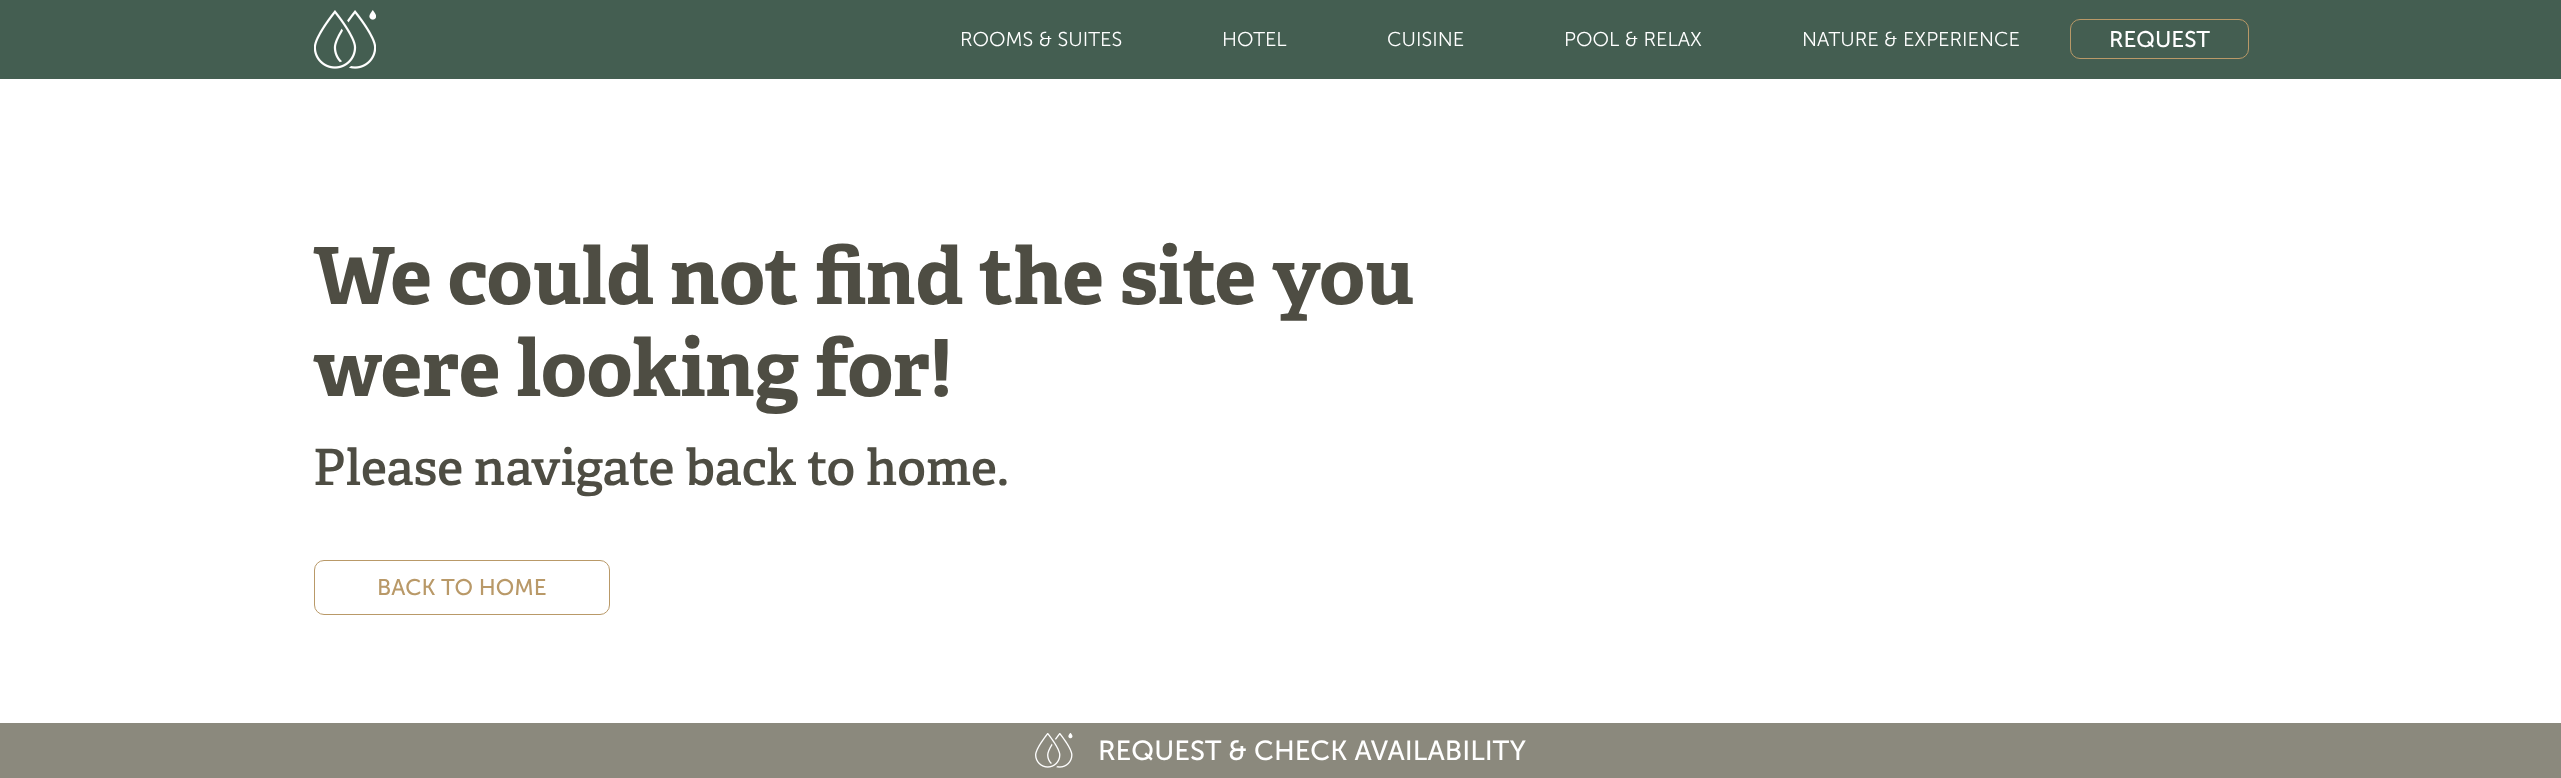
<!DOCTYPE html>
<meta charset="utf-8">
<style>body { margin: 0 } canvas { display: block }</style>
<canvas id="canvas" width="2561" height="778"></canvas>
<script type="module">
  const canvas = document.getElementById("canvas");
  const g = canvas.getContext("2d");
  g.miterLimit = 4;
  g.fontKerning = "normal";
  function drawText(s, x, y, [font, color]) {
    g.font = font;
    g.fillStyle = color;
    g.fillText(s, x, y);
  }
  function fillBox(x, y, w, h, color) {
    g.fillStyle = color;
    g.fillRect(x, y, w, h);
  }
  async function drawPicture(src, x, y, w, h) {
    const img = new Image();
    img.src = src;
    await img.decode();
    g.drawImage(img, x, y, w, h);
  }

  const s1 = ["300 20px Museo Sans", "#FFFFFF"];
  const s2 = ["22.5px Museo Sans", "#FFFFFF"];
  const s3 = ["bold 78.75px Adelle", "#4E4D43"];
  const s4 = ["600 50px Adelle", "#4E4D43"];
  const s5 = ["22.5px Museo Sans", "#B99968"];
  const s6 = ["27.5px Museo Sans", "#FFFFFF"];

  fillBox(0, 0, 2561, 778, "#FFFFFF");
  fillBox(0, 0, 2561, 79, "#445E51");
  await drawPicture("pic1.png", 314, 10, 62, 59);
  drawText("ROOMS & SUITES", 960, 46, s1);
  drawText("HOTEL", 1222, 46, s1);
  drawText("CUISINE", 1387, 46, s1);
  drawText("POOL & RELAX", 1564, 46, s1);
  drawText("NATURE & EXPERIENCE", 1802, 46, s1);
  g.beginPath();
  g.roundRect(2070.5, 19.5, 178, 39, 9.5);
  g.strokeStyle = "#B99968";
  g.stroke();
  drawText("REQUEST", 2109, 47, s2);
  drawText("We could not find the site you", 313, 304, s3);
  drawText("were looking for!", 313, 396, s3);
  drawText("Please navigate back to home.", 313, 485, s4);
  g.beginPath();
  g.roundRect(314.5, 560.5, 295, 54, 9.5);
  g.stroke();
  drawText("BACK TO HOME", 377, 595, s5);
  fillBox(0, 723, 2561, 55, "#8B897D");
  await drawPicture("pic2.png", 1035, 733, 38, 35);
  drawText("REQUEST & CHECK AVAILABILITY", 1098, 760, s6);
</script>
